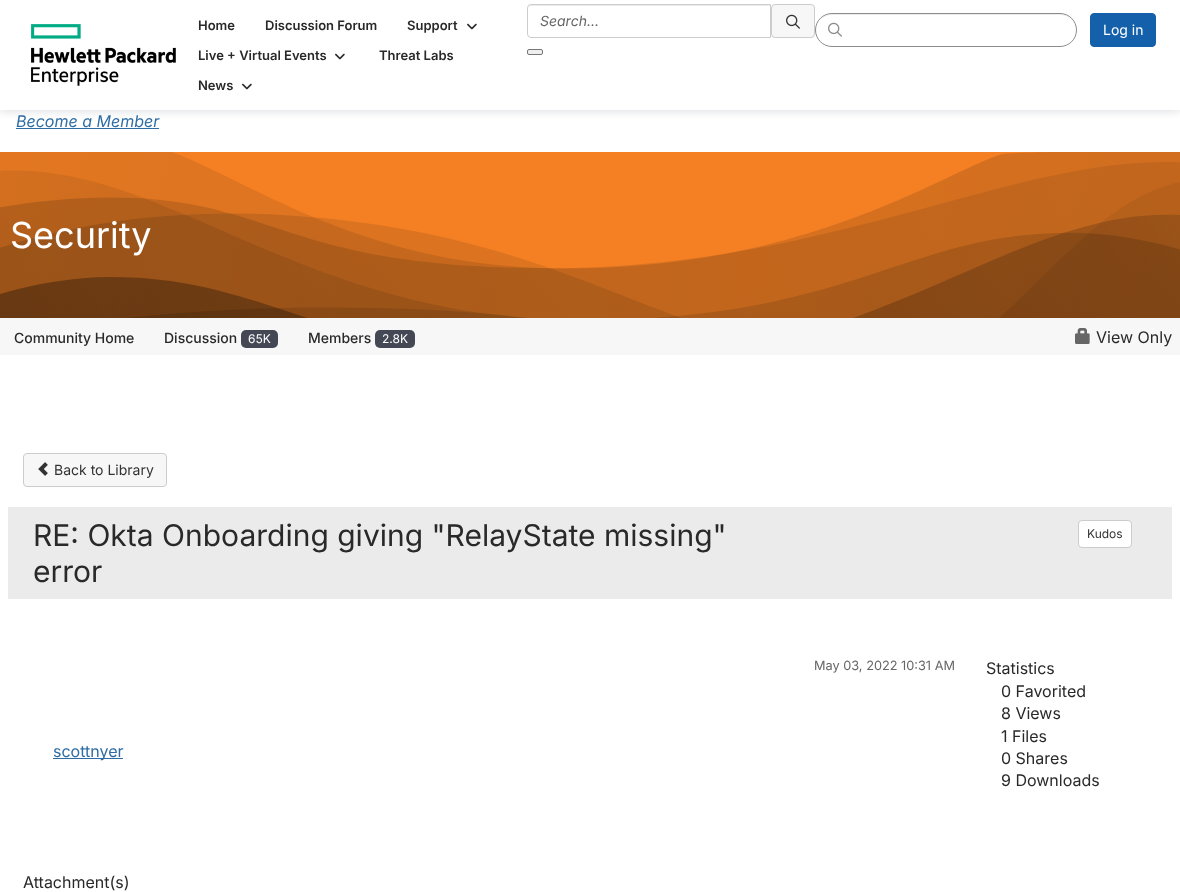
<!DOCTYPE html>
<meta charset="utf-8">
<style>body { margin: 0 } canvas { display: block }</style>
<canvas id="canvas" width="1180" height="892"></canvas>
<script type="module">
  const canvas = document.getElementById("canvas");
  const g = canvas.getContext("2d");
  g.miterLimit = 4;
  g.fontKerning = "normal";
  function drawText(s, x, y, [font, color]) {
    g.font = font;
    g.fillStyle = color;
    g.fillText(s, x, y);
  }
  function fillBox(x, y, w, h, color) {
    g.fillStyle = color;
    g.fillRect(x, y, w, h);
  }
  function fillRounded(x, y, w, h, r, color) {
    g.fillStyle = color;
    g.beginPath();
    g.roundRect(x, y, w, h, r);
    g.fill();
  }
  async function drawPicture(src, x, y, w, h) {
    const img = new Image();
    img.src = src;
    await img.decode();
    g.drawImage(img, x, y, w, h);
  }

  const s1 = ["600 13px Inter", "#292929"];
  const s2 = ["italic 14px Inter", "#666666"];
  const s3 = ["14px Inter", "#FFFFFF"];
  const s4 = ["italic 16px Inter", "#2E6DA4"];
  const s5 = ["36px Inter", "#FFFFFF"];
  const s6 = ["500 14px Inter", "#292929"];
  const s7 = ["12px Inter", "#FFFFFF"];
  const s8 = ["16px Inter", "#292929"];
  const s9 = ["14px Inter", "#333333"];
  const s10 = ["30px Inter", "#292929"];
  const s11 = ["12px Inter", "#333333"];
  const s12 = ["12.75px Inter", "#666666"];
  const s13 = ["16px Inter", "#2E6DA4"];

  fillBox(0, 0, 1180, 892, "#FFFFFF");
  g.save();
  g.beginPath();
  g.rect(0, 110, 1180, 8);
  g.clip();
  g.fillStyle = "rgba(131, 135, 145, 0.24)";
  g.filter = "blur(4px)";
  g.beginPath();
  g.rect(0, 2, 1180, 110);
  g.fill();
  g.filter = "none";
  g.restore();
  await drawPicture("pic1.png", 31, 24, 145, 62);
  drawText("Home", 198, 30, s1);
  drawText("Discussion Forum", 265, 30, s1);
  drawText("Support", 407, 30, s1);
  await drawPicture("pic2.png", 467, 23, 10, 7);
  drawText("Live + Virtual Events", 198, 60, s1);
  await drawPicture("pic2.png", 335, 53, 10, 7);
  drawText("Threat Labs", 379, 60, s1);
  drawText("News", 198, 90, s1);
  await drawPicture("pic2.png", 242, 83, 10, 7);
  g.fillStyle = "#ECECEC";
  g.beginPath();
  g.moveTo(531, 6);
  g.lineTo(770, 6);
  g.lineTo(770, 5);
  g.lineTo(531, 5);
  g.bezierCurveTo(529, 5, 528, 7, 528, 9);
  g.bezierCurveTo(528, 7, 529, 6, 531, 6);
  g.closePath();
  g.fill();
  g.beginPath();
  g.roundRect(527.5, 4.5, 243, 33, [3.5, 0, 0, 3.5]);
  g.strokeStyle = "#CCCCCC";
  g.stroke();
  drawText("Search...", 540, 26, s2);
  g.fillStyle = "#F7F7F7";
  g.beginPath();
  g.roundRect(771.5, 4.5, 43, 33, 3.5);
  g.fill();
  g.stroke();
  await drawPicture("pic3.png", 786, 14, 14, 15);
  g.fillStyle = "#EFEFEF";
  g.beginPath();
  g.roundRect(527.5, 49.5, 15, 5, 1.5);
  g.fill();
  g.strokeStyle = "#767676";
  g.stroke();
  g.fillStyle = "#ECECEC";
  g.beginPath();
  g.moveTo(832, 15);
  g.lineTo(1060, 15);
  g.bezierCurveTo(1069, 15, 1076, 22, 1076, 30);
  g.bezierCurveTo(1076, 22, 1069, 14, 1060, 14);
  g.lineTo(832, 14);
  g.bezierCurveTo(823, 14, 816, 22, 816, 30);
  g.bezierCurveTo(816, 22, 823, 15, 832, 15);
  g.closePath();
  g.fill();
  g.beginPath();
  g.roundRect(815.5, 13.5, 261, 33, 16.5);
  g.strokeStyle = "#8C8C8C";
  g.stroke();
  await drawPicture("pic4.png", 828, 22, 14, 15);
  g.fillStyle = "#1460AA";
  g.beginPath();
  g.roundRect(1090.5, 13.5, 65, 33, 3.5);
  g.fill();
  g.strokeStyle = "#1460AA";
  g.stroke();
  drawText("Log in", 1103, 35, s3);
  drawText("Become a Member", 16, 127, s4);
  fillBox(16, 128, 143, 1, "#2E6DA4");
  await drawPicture("pic5.png", 0, 152, 1180, 166);
  drawText("Security", 10, 248, s5);
  fillBox(0, 318, 1180, 37, "#F7F7F7");
  drawText("Community Home", 14, 343, s6);
  drawText("Discussion", 164, 343, s6);
  fillRounded(241, 330, 37, 18, 5, "#444855");
  drawText("65K", 248, 343, s7);
  drawText("Members", 308, 343, s6);
  fillRounded(375, 330, 40, 18, 5, "#444855");
  drawText("2.8K", 382, 343, s7);
  await drawPicture("pic6.png", 1075, 328, 15, 16);
  drawText("View Only", 1096, 343, s8);
  g.fillStyle = "#F7F7F7";
  g.beginPath();
  g.roundRect(23.5, 453.5, 143, 33, 3.5);
  g.fill();
  g.strokeStyle = "#CCCCCC";
  g.stroke();
  await drawPicture("pic7.png", 38, 462, 10, 14);
  drawText("Back to Library", 54, 475, s9);
  fillBox(8, 507, 1164, 92, "#EBEBEB");
  drawText("RE: Okta Onboarding giving \"RelayState missing\"", 33, 546, s10);
  drawText("error", 33, 582, s10);
  g.fillStyle = "#FFFFFF";
  g.beginPath();
  g.roundRect(1078.5, 520.5, 53, 27, 3.5);
  g.fill();
  g.stroke();
  drawText("Kudos", 1087, 538, s11);
  drawText("May 03, 2022 10:31 AM", 814, 670, s12);
  fillBox(53, 758, 70, 1, "#2E6DA4");
  drawText("scottnyer", 53, 757, s13);
  drawText("Statistics", 986, 674, s8);
  drawText("0 Favorited", 1001, 697, s8);
  drawText("8 Views", 1001, 719, s8);
  drawText("1 Files", 1001, 742, s8);
  drawText("0 Shares", 1001, 764, s8);
  drawText("9 Downloads", 1001, 786, s8);
  drawText("Attachment(s)", 23, 888, s8);
</script>
